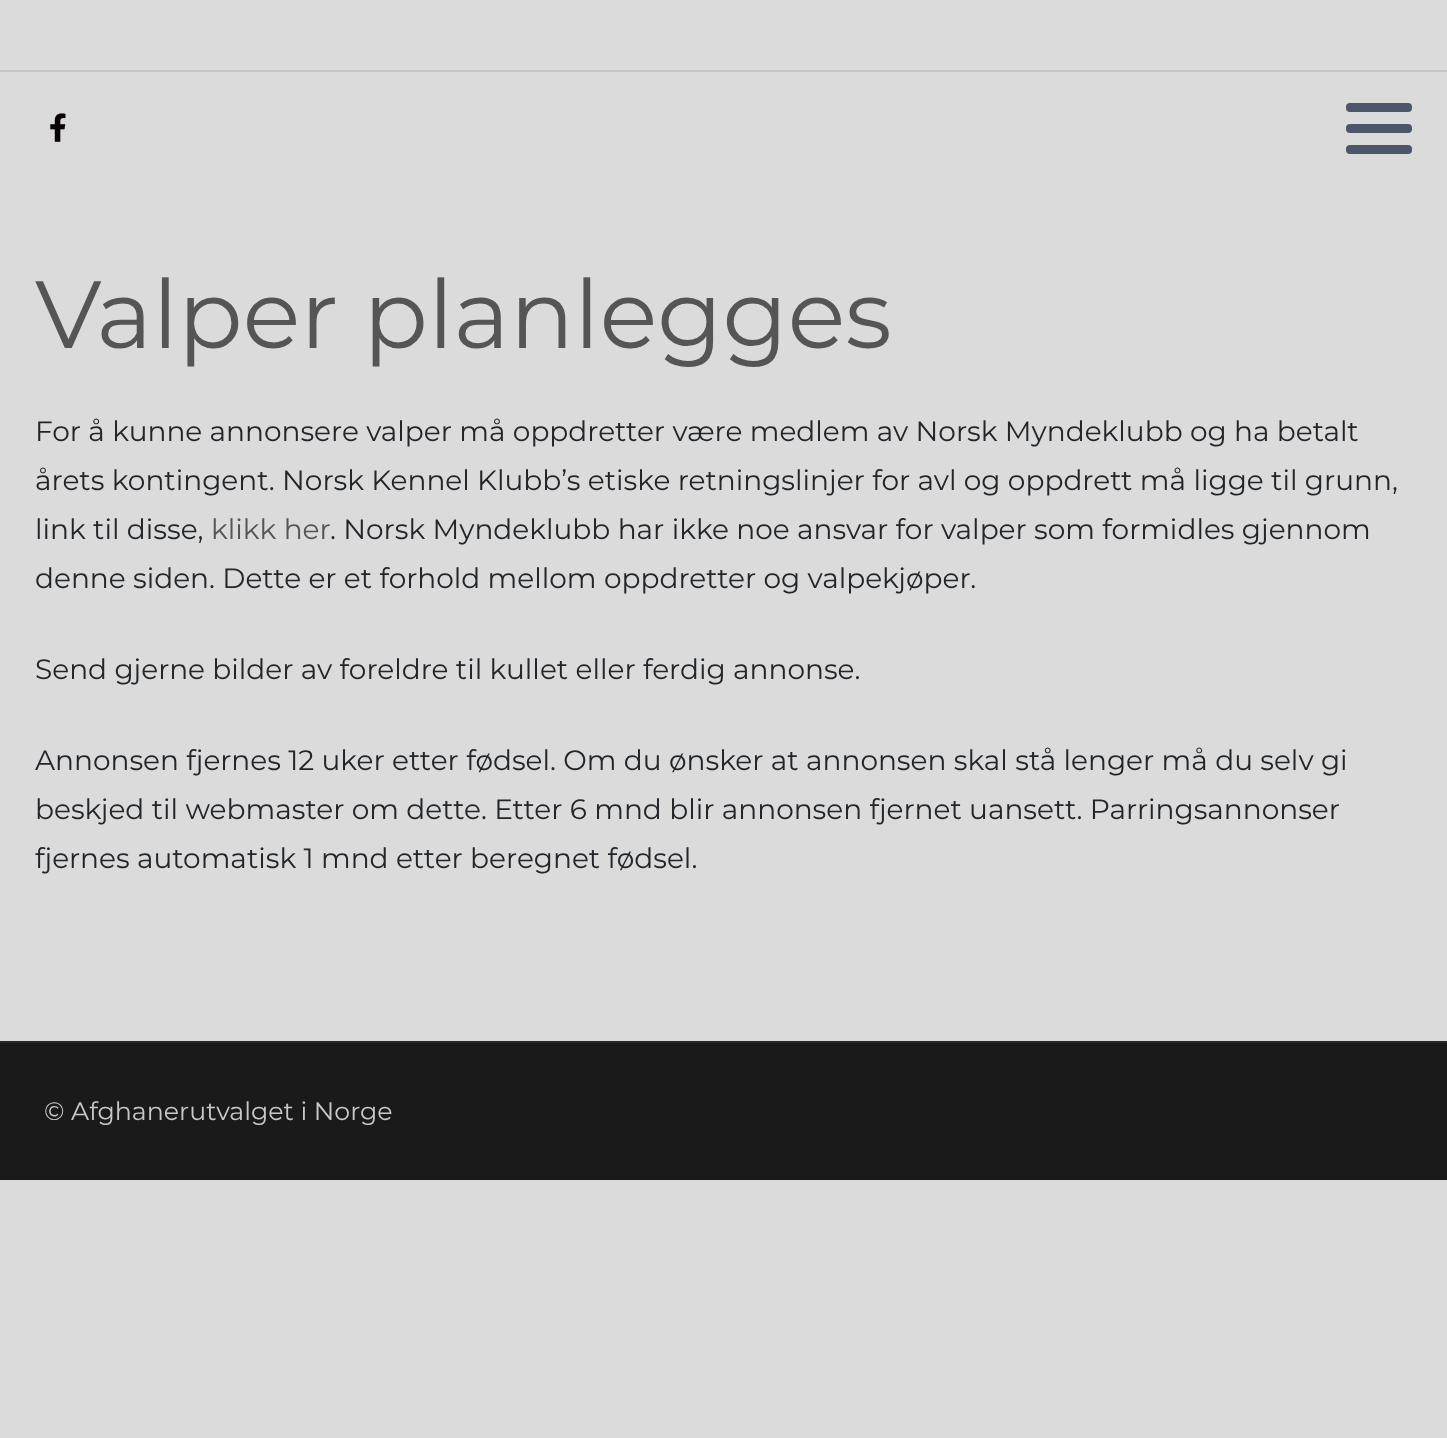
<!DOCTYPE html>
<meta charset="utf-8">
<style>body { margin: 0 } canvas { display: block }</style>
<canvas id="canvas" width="1447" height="1438"></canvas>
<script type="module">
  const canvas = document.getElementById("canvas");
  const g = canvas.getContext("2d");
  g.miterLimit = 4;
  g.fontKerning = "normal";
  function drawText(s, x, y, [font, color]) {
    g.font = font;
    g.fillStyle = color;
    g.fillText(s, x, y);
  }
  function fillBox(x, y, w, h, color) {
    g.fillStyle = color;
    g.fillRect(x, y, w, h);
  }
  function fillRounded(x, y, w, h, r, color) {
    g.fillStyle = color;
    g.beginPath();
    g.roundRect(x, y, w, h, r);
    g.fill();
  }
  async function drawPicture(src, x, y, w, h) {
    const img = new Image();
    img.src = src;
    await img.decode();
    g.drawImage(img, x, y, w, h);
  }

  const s1 = ["95.25px Montserrat", "#555555"];
  const s2 = ["28px Montserrat", "#22262A"];
  const s3 = ["28px Montserrat", "#555555"];
  const s4 = ["25.25px Montserrat", "#C8C8C8"];

  fillBox(0, 0, 1447, 1438, "#DBDBDB");
  fillBox(0, 70, 1447, 2, "#C6C6C6");
  await drawPicture("pic1.png", 50, 113, 16, 29);
  fillRounded(1346, 124, 66, 9, 4, "#4C566A");
  fillRounded(1346, 103, 66, 9, 4, "#4C566A");
  fillRounded(1346, 145, 66, 9, 4, "#4C566A");
  drawText("Valper planlegges", 35, 348, s1);
  drawText("For å kunne annonsere valper må oppdretter være medlem av Norsk Myndeklubb og ha betalt", 35, 441, s2);
  drawText("årets kontingent. Norsk Kennel Klubb’s etiske retningslinjer for avl og oppdrett må ligge til grunn,", 35, 490, s2);
  drawText("link til disse,", 35, 539, s2);
  drawText("klikk her", 211, 539, s3);
  drawText(". Norsk Myndeklubb har ikke noe ansvar for valper som formidles gjennom", 330, 539, s2);
  drawText("denne siden. Dette er et forhold mellom oppdretter og valpekjøper.", 35, 588, s2);
  drawText("Send gjerne bilder av foreldre til kullet eller ferdig annonse.", 35, 679, s2);
  drawText("Annonsen fjernes 12 uker etter fødsel. Om du ønsker at annonsen skal stå lenger må du selv gi", 35, 770, s2);
  drawText("beskjed til webmaster om dette. Etter 6 mnd blir annonsen fjernet uansett. Parringsannonser", 35, 819, s2);
  drawText("fjernes automatisk 1 mnd etter beregnet fødsel.", 35, 868, s2);
  fillBox(0, 1043, 1447, 137, "#1A1A1A");
  fillBox(0, 1041, 1447, 2, "#272727");
  drawText("© Afghanerutvalget i Norge", 44, 1120, s4);
</script>
